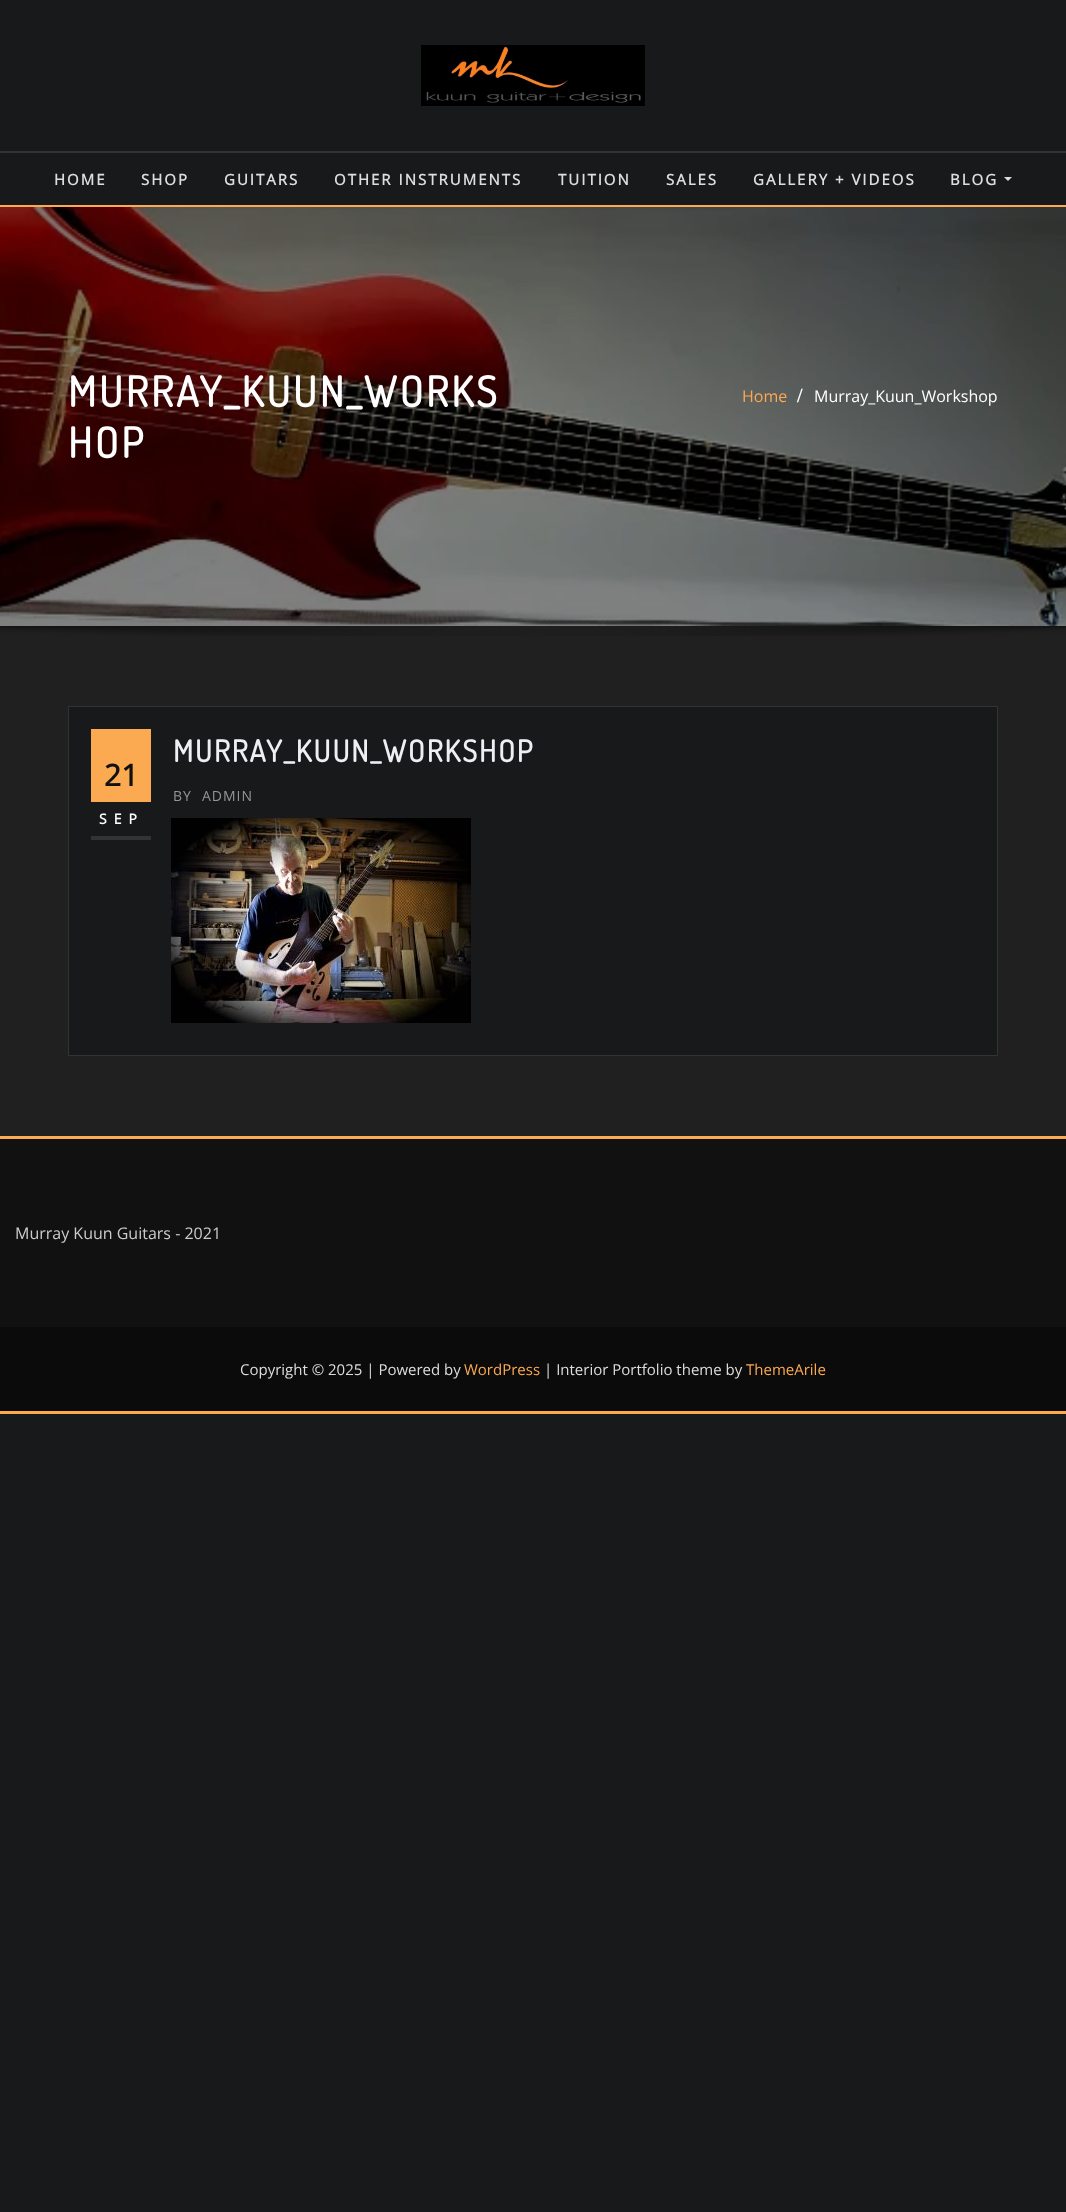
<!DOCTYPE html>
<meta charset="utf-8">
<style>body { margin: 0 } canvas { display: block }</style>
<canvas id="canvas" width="1066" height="2212"></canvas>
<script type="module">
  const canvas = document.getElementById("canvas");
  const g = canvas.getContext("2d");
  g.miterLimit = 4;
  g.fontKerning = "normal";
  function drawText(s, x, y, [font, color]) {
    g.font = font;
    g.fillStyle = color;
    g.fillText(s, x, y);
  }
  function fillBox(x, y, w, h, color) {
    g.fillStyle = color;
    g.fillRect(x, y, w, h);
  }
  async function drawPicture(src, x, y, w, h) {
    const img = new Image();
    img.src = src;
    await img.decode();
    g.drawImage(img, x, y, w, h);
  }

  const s1 = ["bold 15px Open Sans", "#DDDDDD"];
  const s2 = ["bold 42px Dosis", "#FFFFFF"];
  const s3 = ["16px Open Sans", "#FCAA52"];
  const s4 = ["bold 20px Liberation Serif", "#FFFFFF"];
  const s5 = ["16px Open Sans", "#FFFFFF"];
  const s6 = ["bold 30px Open Sans", "#111111"];
  const s7 = ["bold 14px Open Sans", "#FFFFFF"];
  const s8 = ["bold 30px Dosis", "#ECEFF3"];
  const s9 = ["14px Open Sans", "#959595"];
  const s10 = ["16px Open Sans", "#CCCCCC"];
  const s11 = ["15px Open Sans", "#DDDDDD"];
  const s12 = ["15px Open Sans", "#FCAA52"];

  fillBox(0, 0, 1066, 2212, "#18191B");
  await drawPicture("pic1.png", 421, 45, 224, 61);
  fillBox(0, 151, 1066, 2, "#333333");
  fillBox(0, 205, 1066, 2, "#FCAA52");
  g.letterSpacing = "2px";
  drawText("HOME", 54, 185, s1);
  drawText("SHOP", 141, 185, s1);
  drawText("GUITARS", 224, 185, s1);
  drawText("OTHER INSTRUMENTS", 334, 185, s1);
  drawText("TUITION", 558, 185, s1);
  drawText("SALES", 666, 185, s1);
  drawText("GALLERY + VIDEOS", 753, 185, s1);
  drawText("BLOG", 950, 185, s1);
  g.beginPath();
  g.moveTo(1004, 177);
  g.lineTo(1012, 177);
  g.lineTo(1008, 181);
  g.closePath();
  g.fill();
  await drawPicture("pic2.png", 0, 207, 1066, 419);
  g.letterSpacing = "3px";
  drawText("MURRAY_KUUN_WORKS", 68, 407, s2);
  drawText("HOP", 68, 458, s2);
  g.letterSpacing = "0px";
  drawText("Home", 742, 402, s3);
  g.letterSpacing = "2px";
  drawText("/", 797, 402, s4);
  g.letterSpacing = "0px";
  drawText("Murray_Kuun_Workshop", 814, 402, s5);
  fillBox(0, 626, 1066, 510, "#202020");
  await drawPicture("pic3.png", 0, 626, 1066, 10);
  g.fillStyle = "#18191B";
  g.beginPath();
  g.rect(68.5, 706.5, 929, 349);
  g.fill();
  g.strokeStyle = "#333333";
  g.stroke();
  fillBox(91, 729, 60, 73, "#FCAA52");
  drawText("21", 104, 786, s6);
  fillBox(91, 836, 60, 4, "#333333");
  g.letterSpacing = "7px";
  drawText("SEP", 99, 824, s7);
  g.letterSpacing = "2px";
  drawText("MURRAY_KUUN_WORKSHOP", 173, 762, s8);
  g.letterSpacing = "1px";
  drawText("BY", 173, 801, s9);
  drawText("ADMIN", 202, 801, s9);
  await drawPicture("pic4.png", 171, 818, 300, 205);
  fillBox(0, 1139, 1066, 188, "#111111");
  fillBox(0, 1136, 1066, 3, "#FCAA52");
  fillBox(0, 1411, 1066, 3, "#FCAA52");
  g.letterSpacing = "0px";
  drawText("Murray Kuun Guitars - 2021", 15, 1239, s10);
  fillBox(0, 1327, 1066, 84, "#0B0B0B");
  drawText("Copyright © 2025 | Powered by", 240, 1375, s11);
  drawText("WordPress", 464, 1375, s12);
  drawText("| Interior Portfolio theme by", 544, 1375, s11);
  drawText("ThemeArile", 746, 1375, s12);
</script>
